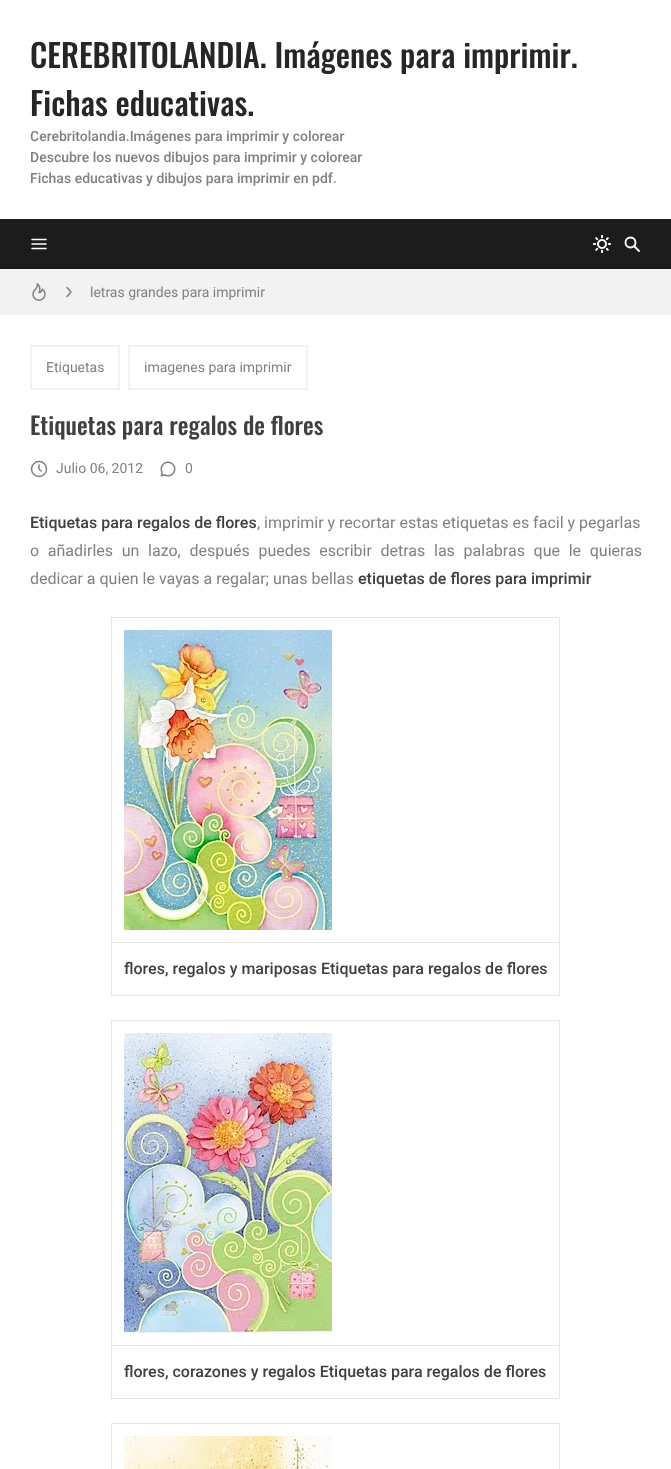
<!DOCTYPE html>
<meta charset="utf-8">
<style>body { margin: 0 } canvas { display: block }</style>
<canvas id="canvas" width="671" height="1469"></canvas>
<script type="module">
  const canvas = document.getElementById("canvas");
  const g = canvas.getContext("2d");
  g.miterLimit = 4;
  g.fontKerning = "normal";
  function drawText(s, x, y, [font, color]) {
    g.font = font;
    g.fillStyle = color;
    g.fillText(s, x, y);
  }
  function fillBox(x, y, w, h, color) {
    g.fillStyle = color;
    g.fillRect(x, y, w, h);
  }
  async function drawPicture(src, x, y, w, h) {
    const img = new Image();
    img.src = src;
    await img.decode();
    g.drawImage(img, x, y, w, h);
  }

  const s1 = ["500 32px Oswald", "#262626"];
  const s2 = ["500 14px Roboto", "#808080"];
  const s3 = ["14px Roboto", "#808080"];
  const s4 = ["500 24px Oswald", "#404040"];
  const s5 = ["500 16px Roboto", "#404040"];
  const s6 = ["16px Roboto", "#808080"];

  fillBox(0, 0, 671, 1469, "#FFFFFF");
  drawText("CEREBRITOLANDIA. Imágenes para imprimir.", 30, 68, s1);
  drawText("Fichas educativas.", 30, 116, s1);
  drawText("Cerebritolandia.Imágenes para imprimir y colorear", 30, 141, s2);
  drawText("Descubre los nuevos dibujos para imprimir y colorear", 30, 162, s2);
  drawText("Fichas educativas y dibujos para imprimir en pdf.", 30, 183, s2);
  fillBox(0, 219, 671, 50, "#1C1C1C");
  g.beginPath();
  g.moveTo(32, 239.5);
  g.lineTo(46, 239.5);
  g.moveTo(32, 244);
  g.lineTo(46, 244);
  g.moveTo(32, 248.5);
  g.lineTo(46, 248.5);
  g.strokeStyle = "#FFFFFF";
  g.lineWidth = 1.5;
  g.lineCap = "round";
  g.lineJoin = "round";
  g.stroke();
  await drawPicture("pic1.png", 593, 235, 18, 18);
  g.beginPath();
  g.arc(630.5, 242.5, 5, 0, Math.PI * 2);
  g.lineWidth = 1.9;
  g.stroke();
  g.beginPath();
  g.moveTo(634, 246);
  g.lineTo(639, 251);
  g.stroke();
  fillBox(0, 269, 671, 46, "#F2F2F2");
  await drawPicture("pic2.png", 32, 283, 14, 18);
  g.beginPath();
  g.moveTo(67, 296.5);
  g.lineTo(71, 292);
  g.lineTo(67, 287.5);
  g.strokeStyle = "#808080";
  g.lineWidth = 1.5;
  g.stroke();
  drawText("letras grandes para imprimir", 90, 297, s3);
  g.strokeStyle = "#F2F2F2";
  g.lineWidth = 2;
  g.lineJoin = "miter";
  g.strokeRect(31, 346, 88, 43);
  drawText("Etiquetas", 46, 372, s3);
  g.strokeRect(129, 346, 178, 43);
  drawText("imagenes para imprimir", 144, 372, s3);
  drawText("Etiquetas para regalos de flores", 30, 435, s4);
  g.beginPath();
  g.arc(39, 469, 7.5, 0, Math.PI * 2);
  g.strokeStyle = "#808080";
  g.lineWidth = 1.5;
  g.stroke();
  g.beginPath();
  g.moveTo(39, 465);
  g.lineTo(39, 469);
  g.lineTo(41, 471);
  g.lineJoin = "round";
  g.stroke();
  drawText("Julio 06, 2012", 56, 473, s3);
  await drawPicture("pic3.png", 160, 461, 16, 16);
  drawText("0", 185, 473, s3);
  drawText("Etiquetas para regalos de flores", 30, 528, s5);
  drawText(", imprimir y recortar estas etiquetas es facil y pegarlas", 257, 528, s6);
  g.wordSpacing = "4.75px";
  drawText("o añadirles un lazo, después puedes escribir detras las palabras que le quieras", 30, 556, s6);
  g.wordSpacing = "0px";
  drawText("dedicar a quien le vayas a regalar; unas bellas", 30, 584, s6);
  drawText("etiquetas de flores para imprimir", 358, 584, s5);
  fillBox(111, 617, 449, 1, "#E6E6E6");
  fillBox(111, 942, 449, 1, "#E6E6E6");
  fillBox(559, 942, 1, 54, "#E6E6E6");
  fillBox(559, 617, 1, 326, "#E6E6E6");
  fillBox(111, 995, 449, 1, "#E6E6E6");
  fillBox(111, 942, 1, 54, "#E6E6E6");
  fillBox(111, 617, 1, 326, "#E6E6E6");
  await drawPicture("pic4.png", 124, 630, 208, 300);
  drawText("flores, regalos y mariposas Etiquetas para regalos de flores", 124, 974, s5);
  fillBox(111, 1020, 449, 1, "#E6E6E6");
  fillBox(111, 1345, 449, 1, "#E6E6E6");
  fillBox(559, 1345, 1, 54, "#E6E6E6");
  fillBox(559, 1020, 1, 326, "#E6E6E6");
  fillBox(111, 1398, 449, 1, "#E6E6E6");
  fillBox(111, 1345, 1, 54, "#E6E6E6");
  fillBox(111, 1020, 1, 326, "#E6E6E6");
  await drawPicture("pic5.png", 124, 1033, 208, 300);
  drawText("flores, corazones y regalos Etiquetas para regalos de flores", 124, 1377, s5);
  fillBox(111, 1423, 449, 1, "#E6E6E6");
  fillBox(559, 1423, 1, 46, "#E6E6E6");
  fillBox(111, 1423, 1, 46, "#E6E6E6");
  await drawPicture("pic6.png", 124, 1436, 208, 33);
</script>
